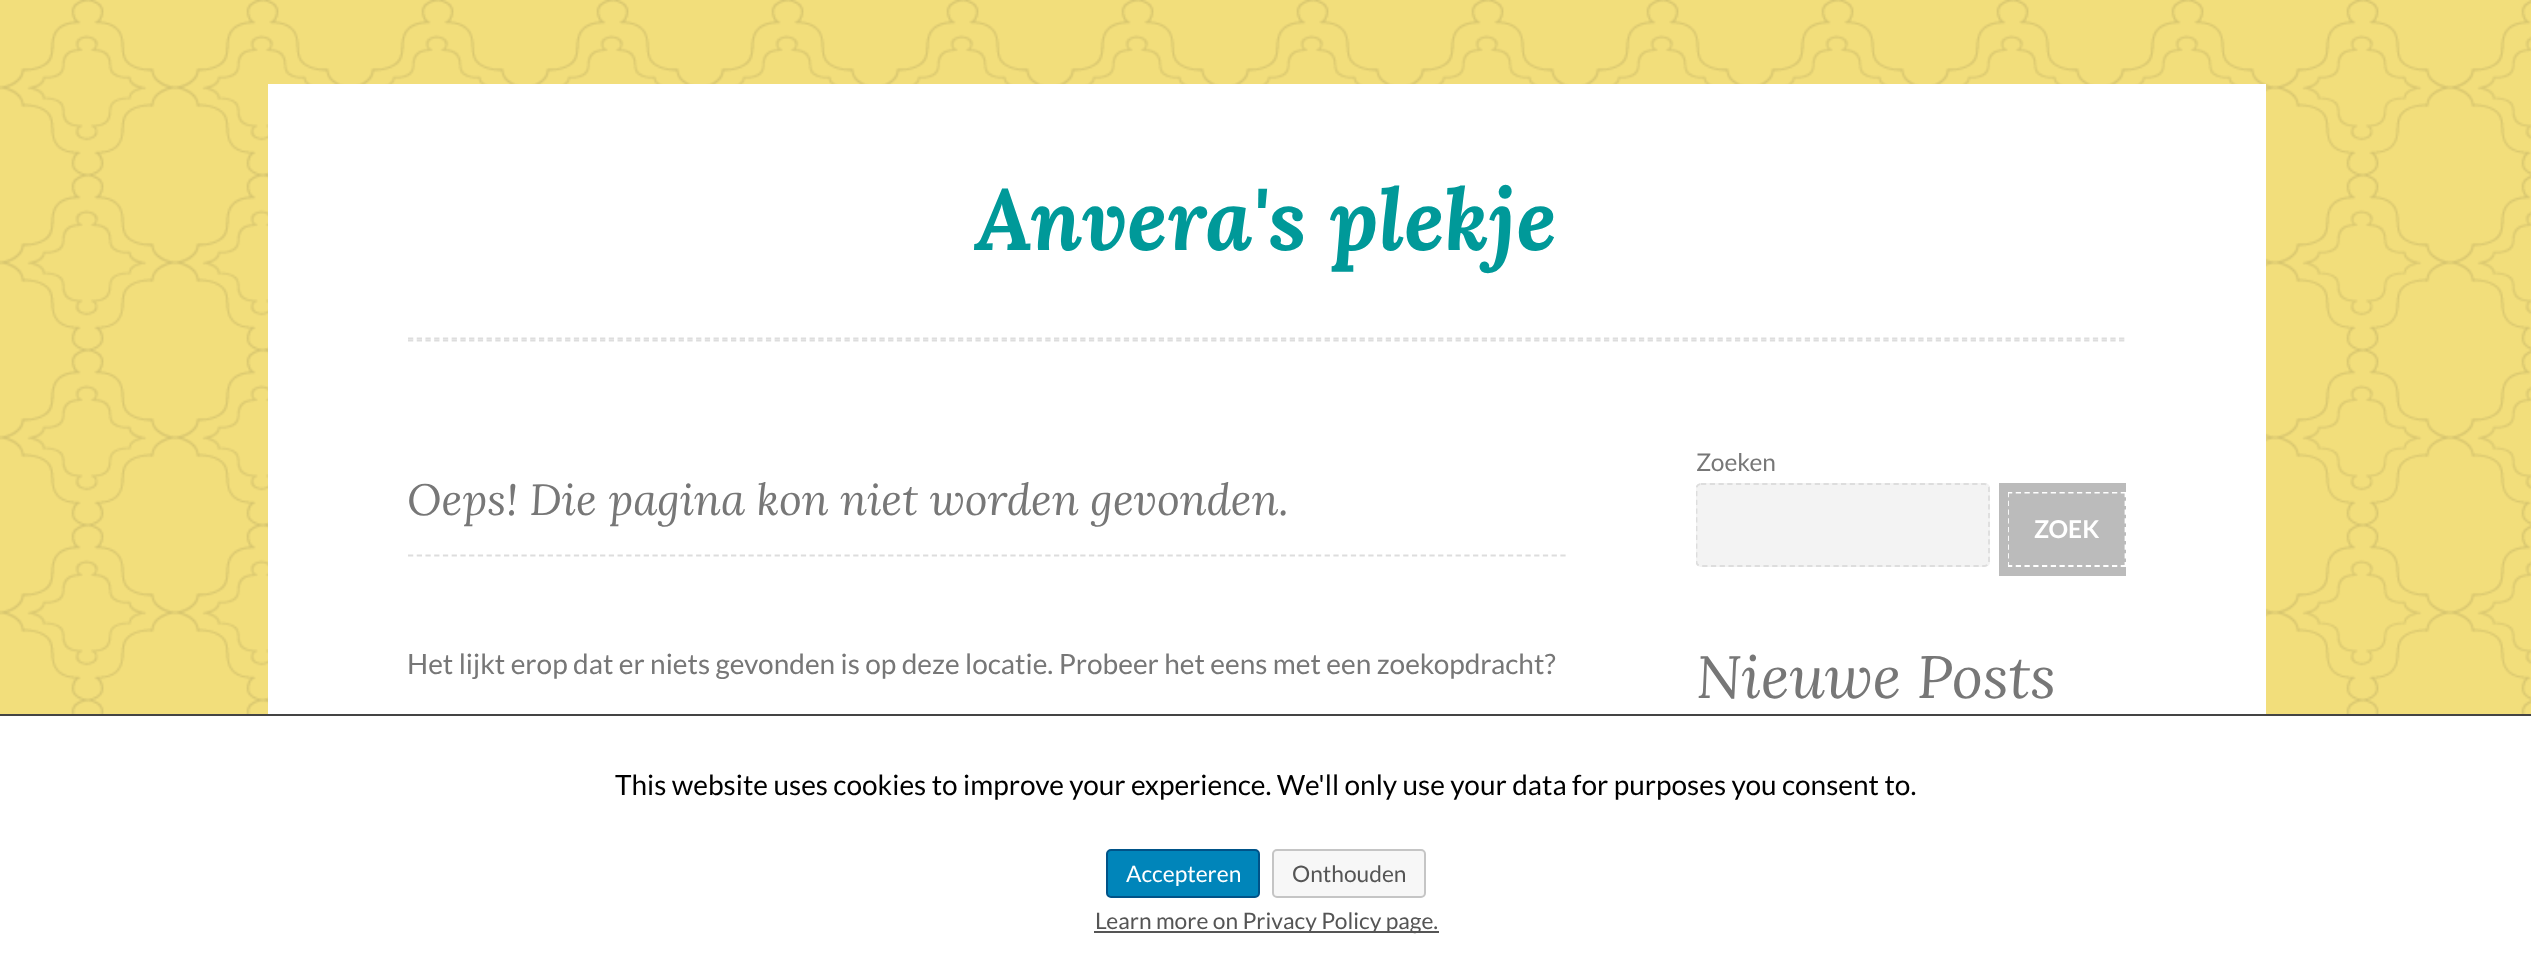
<!DOCTYPE html>
<meta charset="utf-8">
<style>body { margin: 0 } canvas { display: block }</style>
<canvas id="canvas" width="2531" height="964"></canvas>
<script type="module">
  const canvas = document.getElementById("canvas");
  const g = canvas.getContext("2d");
  g.miterLimit = 4;
  g.fontKerning = "normal";
  function drawText(s, x, y, [font, color]) {
    g.font = font;
    g.fillStyle = color;
    g.fillText(s, x, y);
  }
  function fillBox(x, y, w, h, color) {
    g.fillStyle = color;
    g.fillRect(x, y, w, h);
  }
  function fillRounded(x, y, w, h, r, color) {
    g.fillStyle = color;
    g.beginPath();
    g.roundRect(x, y, w, h, r);
    g.fill();
  }
  async function drawPicture(src, x, y, w, h) {
    const img = new Image();
    img.src = src;
    await img.decode();
    g.drawImage(img, x, y, w, h);
  }

  const s1 = ["italic bold 85.5px Lora", "#009999"];
  const s2 = ["italic 43.75px Lora", "#777777"];
  const s3 = ["28px Lato", "#777777"];
  const s4 = ["24.5px Lato", "#777777"];
  const s5 = ["bold 24.5px Lato", "#FFFFFF"];
  const s6 = ["italic 59.75px Lora", "#777777"];
  const s7 = ["28px Lato", "#000000"];
  const s8 = ["22.75px Lato", "#FFFFFF"];
  const s9 = ["22.75px Lato", "#555555"];

  fillBox(0, 0, 2531, 964, "#F2DE7B");
  await drawPicture("pic1.png", 0, 0, 2531, 714);
  fillBox(268, 84, 1998, 630, "#FFFFFF");
  drawText("Anvera's plekje", 975, 250, s1);
  g.beginPath();
  g.moveTo(408, 338.5);
  g.lineTo(2126, 338.5);
  g.strokeStyle = "#DDDDDD";
  g.lineWidth = 1.8;
  g.setLineDash([5.25, 3.48]);
  g.stroke();
  g.beginPath();
  g.moveTo(408, 340.5);
  g.lineTo(2126, 340.5);
  g.stroke();
  g.beginPath();
  g.moveTo(408, 555.5);
  g.lineTo(1566, 555.5);
  g.stroke();
  drawText("Oeps! Die pagina kon niet worden gevonden.", 407, 515, s2);
  drawText("Het lijkt erop dat er niets gevonden is op deze locatie. Probeer het eens met een zoekopdracht?", 407, 674, s3);
  drawText("Zoeken", 1696, 471, s4);
  fillRounded(1696, 483, 294, 84, 5, "#F3F3F3");
  g.save();
  g.beginPath();
  g.rect(1696, 443, 430, 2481);
  g.clip();
  g.beginPath();
  g.moveTo(1701, 484);
  g.lineTo(1984.5, 484);
  g.bezierCurveTo(1987, 484, 1989, 486, 1989, 488);
  g.lineTo(1989, 562);
  g.bezierCurveTo(1989, 564, 1987, 566, 1984.5, 566);
  g.lineTo(1701, 566);
  g.bezierCurveTo(1698.5, 566, 1696.5, 564, 1696.5, 562);
  g.lineTo(1696.5, 488);
  g.bezierCurveTo(1696.5, 486, 1698.5, 484, 1701, 484);
  g.closePath();
  g.setLineDash([5.25, 3.5]);
  g.stroke();
  g.restore();
  fillBox(2008, 492, 118, 75, "#BBBBBB");
  g.beginPath();
  g.moveTo(2007, 492.5);
  g.lineTo(2126, 492.5);
  g.strokeStyle = "#FFFFFF";
  g.setLineDash([5.25, 3.5]);
  g.stroke();
  g.save();
  g.beginPath();
  g.rect(1696, 443, 430, 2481);
  g.clip();
  g.beginPath();
  g.moveTo(2125.5, 492);
  g.lineTo(2125.5, 567);
  g.stroke();
  g.restore();
  g.beginPath();
  g.moveTo(2007, 566);
  g.lineTo(2126, 566);
  g.stroke();
  g.beginPath();
  g.moveTo(2008, 492);
  g.lineTo(2008, 567);
  g.stroke();
  g.save();
  g.beginPath();
  g.rect(1696, 443, 430, 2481);
  g.clip();
  g.strokeStyle = "#BBBBBB";
  g.lineWidth = 9;
  g.setLineDash([]);
  g.strokeRect(2003.5, 487.5, 127, 84);
  g.restore();
  drawText("ZOEK", 2034, 538, s5);
  drawText("Nieuwe Posts", 1696, 698, s6);
  fillBox(0, 716, 2531, 248, "#FFFFFF");
  fillBox(0, 714, 2531, 2, "#444444");
  drawText("This website uses cookies to improve your experience. We'll only use your data for purposes you consent to.", 615, 795, s7);
  g.fillStyle = "#0085BA";
  g.beginPath();
  g.roundRect(1107, 850, 152, 47, 4);
  g.fill();
  g.strokeStyle = "#005388";
  g.lineWidth = 2;
  g.setLineDash([]);
  g.stroke();
  drawText("Accepteren", 1126, 882, s8);
  g.fillStyle = "#F7F7F7";
  g.beginPath();
  g.roundRect(1273, 850, 152, 47, 4);
  g.fill();
  g.strokeStyle = "#C5C5C5";
  g.stroke();
  drawText("Onthouden", 1292, 882, s9);
  fillBox(1094, 931, 345, 2, "#555555");
  drawText("Learn more on Privacy Policy page.", 1095, 929, s9);
</script>
